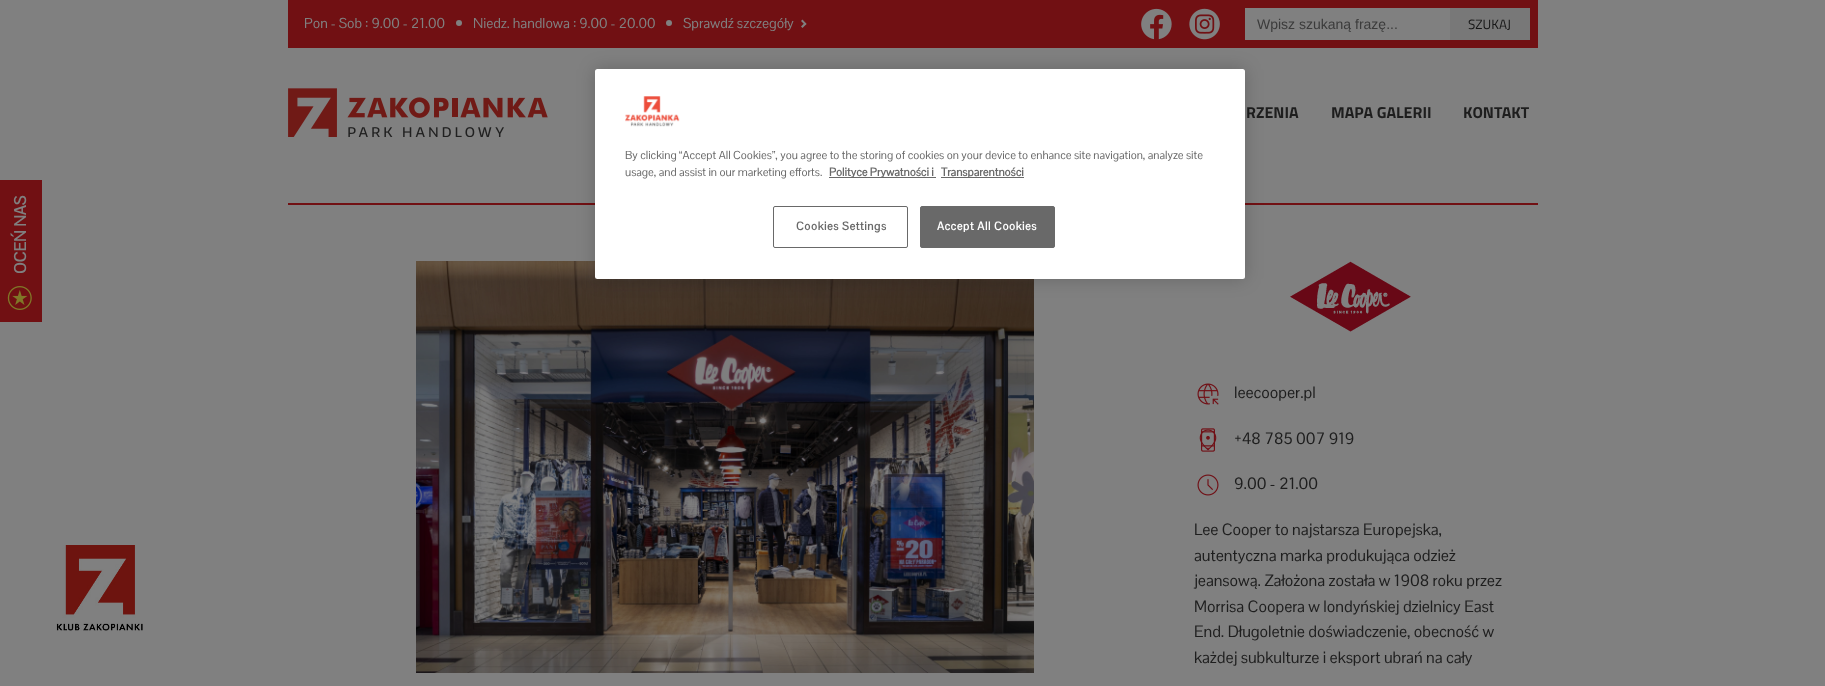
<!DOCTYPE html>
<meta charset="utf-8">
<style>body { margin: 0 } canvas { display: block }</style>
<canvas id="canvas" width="1825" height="686"></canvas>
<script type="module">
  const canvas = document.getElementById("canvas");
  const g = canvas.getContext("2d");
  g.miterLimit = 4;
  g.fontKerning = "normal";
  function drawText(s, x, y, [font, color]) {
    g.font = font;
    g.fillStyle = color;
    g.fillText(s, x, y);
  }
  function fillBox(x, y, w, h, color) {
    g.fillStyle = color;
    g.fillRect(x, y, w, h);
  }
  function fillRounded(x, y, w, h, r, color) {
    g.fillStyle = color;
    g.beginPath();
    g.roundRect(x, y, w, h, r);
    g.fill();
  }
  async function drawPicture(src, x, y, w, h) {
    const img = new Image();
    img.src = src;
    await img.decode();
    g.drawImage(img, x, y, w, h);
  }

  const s1 = ["14px Pontano Sans", "#808080"];
  const s2 = ["14px Liberation Sans", "#3B3B3B"];
  const s3 = ["13.5px Titillium Web", "#161616"];
  const s4 = ["bold 16px Titillium Web", "#1E1E1E"];
  const s5 = ["11.38px Pontano Sans", "#696969"];
  const s6 = ["bold 11.38px Pontano Sans", "#696969"];
  const s7 = ["bold 11.38px Pontano Sans", "#FFFFFF"];
  const s8 = ["16px Pontano Sans", "#1E1E1E"];

  fillBox(0, 0, 1825, 686, "#808080");
  fillBox(288, 0, 1250, 48, "#711013");
  drawText("Pon - Sob : 9.00 - 21.00", 304, 28, s1);
  g.beginPath();
  g.arc(459, 23, 3, 0, Math.PI * 2);
  g.fill();
  drawText("Niedz. handlowa : 9.00 - 20.00", 473, 28, s1);
  g.beginPath();
  g.arc(669, 23, 3, 0, Math.PI * 2);
  g.fill();
  drawText("Sprawdź szczegóły", 683, 28, s1);
  g.beginPath();
  g.moveTo(802.5, 19.5);
  g.lineTo(806.5, 24);
  g.lineTo(805, 25);
  g.lineTo(801, 21);
  g.closePath();
  g.fill();
  g.beginPath();
  g.moveTo(805, 22.5);
  g.lineTo(806.5, 24);
  g.lineTo(802.5, 28);
  g.lineTo(801, 26.5);
  g.closePath();
  g.fill();
  await drawPicture("pic1.png", 1141, 8, 31, 32);
  await drawPicture("pic2.png", 1189, 8, 31, 32);
  fillBox(1245, 8, 205, 32, "#808080");
  drawText("Wpisz szukaną frazę...", 1257, 29, s2);
  fillBox(1450, 8, 80, 32, "#787878");
  drawText("SZUKAJ", 1468, 29, s3);
  await drawPicture("pic3.png", 288, 88, 260, 49);
  drawText("RZENIA", 1246, 118, s4);
  drawText("MAPA GALERII", 1331, 118, s4);
  drawText("KONTAKT", 1463, 118, s4);
  fillBox(0, 180, 42, 142, "#711013");
  g.font = "bold 16px Pontano Sans";
  g.fillStyle = "#808080";
  g.save();
  g.translate(26, 274);
  g.rotate(-90 * Math.PI / 180);
  g.fillText("OCEŃ NAS", 0, 0);
  g.restore();
  await drawPicture("pic4.png", 7, 286, 25, 24);
  fillBox(288, 203, 1250, 2, "#711013");
  await drawPicture("pic7.png", 416, 261, 618, 412);
  g.fillStyle = "rgba(0, 0, 0, 0.2)";
  g.filter = "blur(9px)";
  g.beginPath();
  g.roundRect(595, 69, 650, 210, 2.5);
  g.fill();
  g.filter = "none";
  fillRounded(595, 69, 650, 210, 2.5, "#FFFFFF");
  await drawPicture("pic5.png", 625, 96, 55, 31);
  drawText("By clicking “Accept All Cookies”, you agree to the storing of cookies on your device to enhance site navigation, analyze site", 625, 159, s5);
  drawText("usage, and assist in our marketing efforts.", 625, 176, s5);
  fillBox(829, 177, 107, 1, "#696969");
  drawText("Polityce Prywatności i", 829, 176, s6);
  fillBox(941, 177, 83, 1, "#696969");
  drawText("Transparentności", 941, 176, s6);
  g.beginPath();
  g.roundRect(773.5, 206.5, 134, 41, 1.5);
  g.strokeStyle = "#696969";
  g.stroke();
  g.letterSpacing = "0.6px";
  drawText("Cookies Settings", 796, 230, s6);
  g.beginPath();
  g.roundRect(920.5, 206.5, 134, 41, 1.5);
  g.fill();
  g.stroke();
  drawText("Accept All Cookies", 937, 230, s7);
  await drawPicture("pic6.png", 56, 545, 87, 86);
  await drawPicture("pic8.png", 1290, 261, 121, 71);
  await drawPicture("pic9.png", 1197, 383, 22, 22);
  g.letterSpacing = "0px";
  drawText("leecooper.pl", 1234, 398, s8);
  await drawPicture("pic10.png", 1199, 429, 18, 22);
  await drawPicture("pic11.png", 1201, 428, 14, 24);
  drawText("+48 785 007 919", 1234, 444, s8);
  await drawPicture("pic12.png", 1197, 474, 22, 22);
  drawText("9.00 - 21.00", 1234, 489, s8);
  drawText("Lee Cooper to najstarsza Europejska,", 1194, 535, s8);
  drawText("autentyczna marka produkująca odzież", 1194, 561, s8);
  drawText("jeansową. Założona została w 1908 roku przez", 1194, 586, s8);
  drawText("Morrisa Coopera w londyńskiej dzielnicy East", 1194, 612, s8);
  drawText("End. Długoletnie doświadczenie, obecność w", 1194, 637, s8);
  drawText("każdej subkulturze i eksport ubrań na cały", 1194, 663, s8);
</script>
